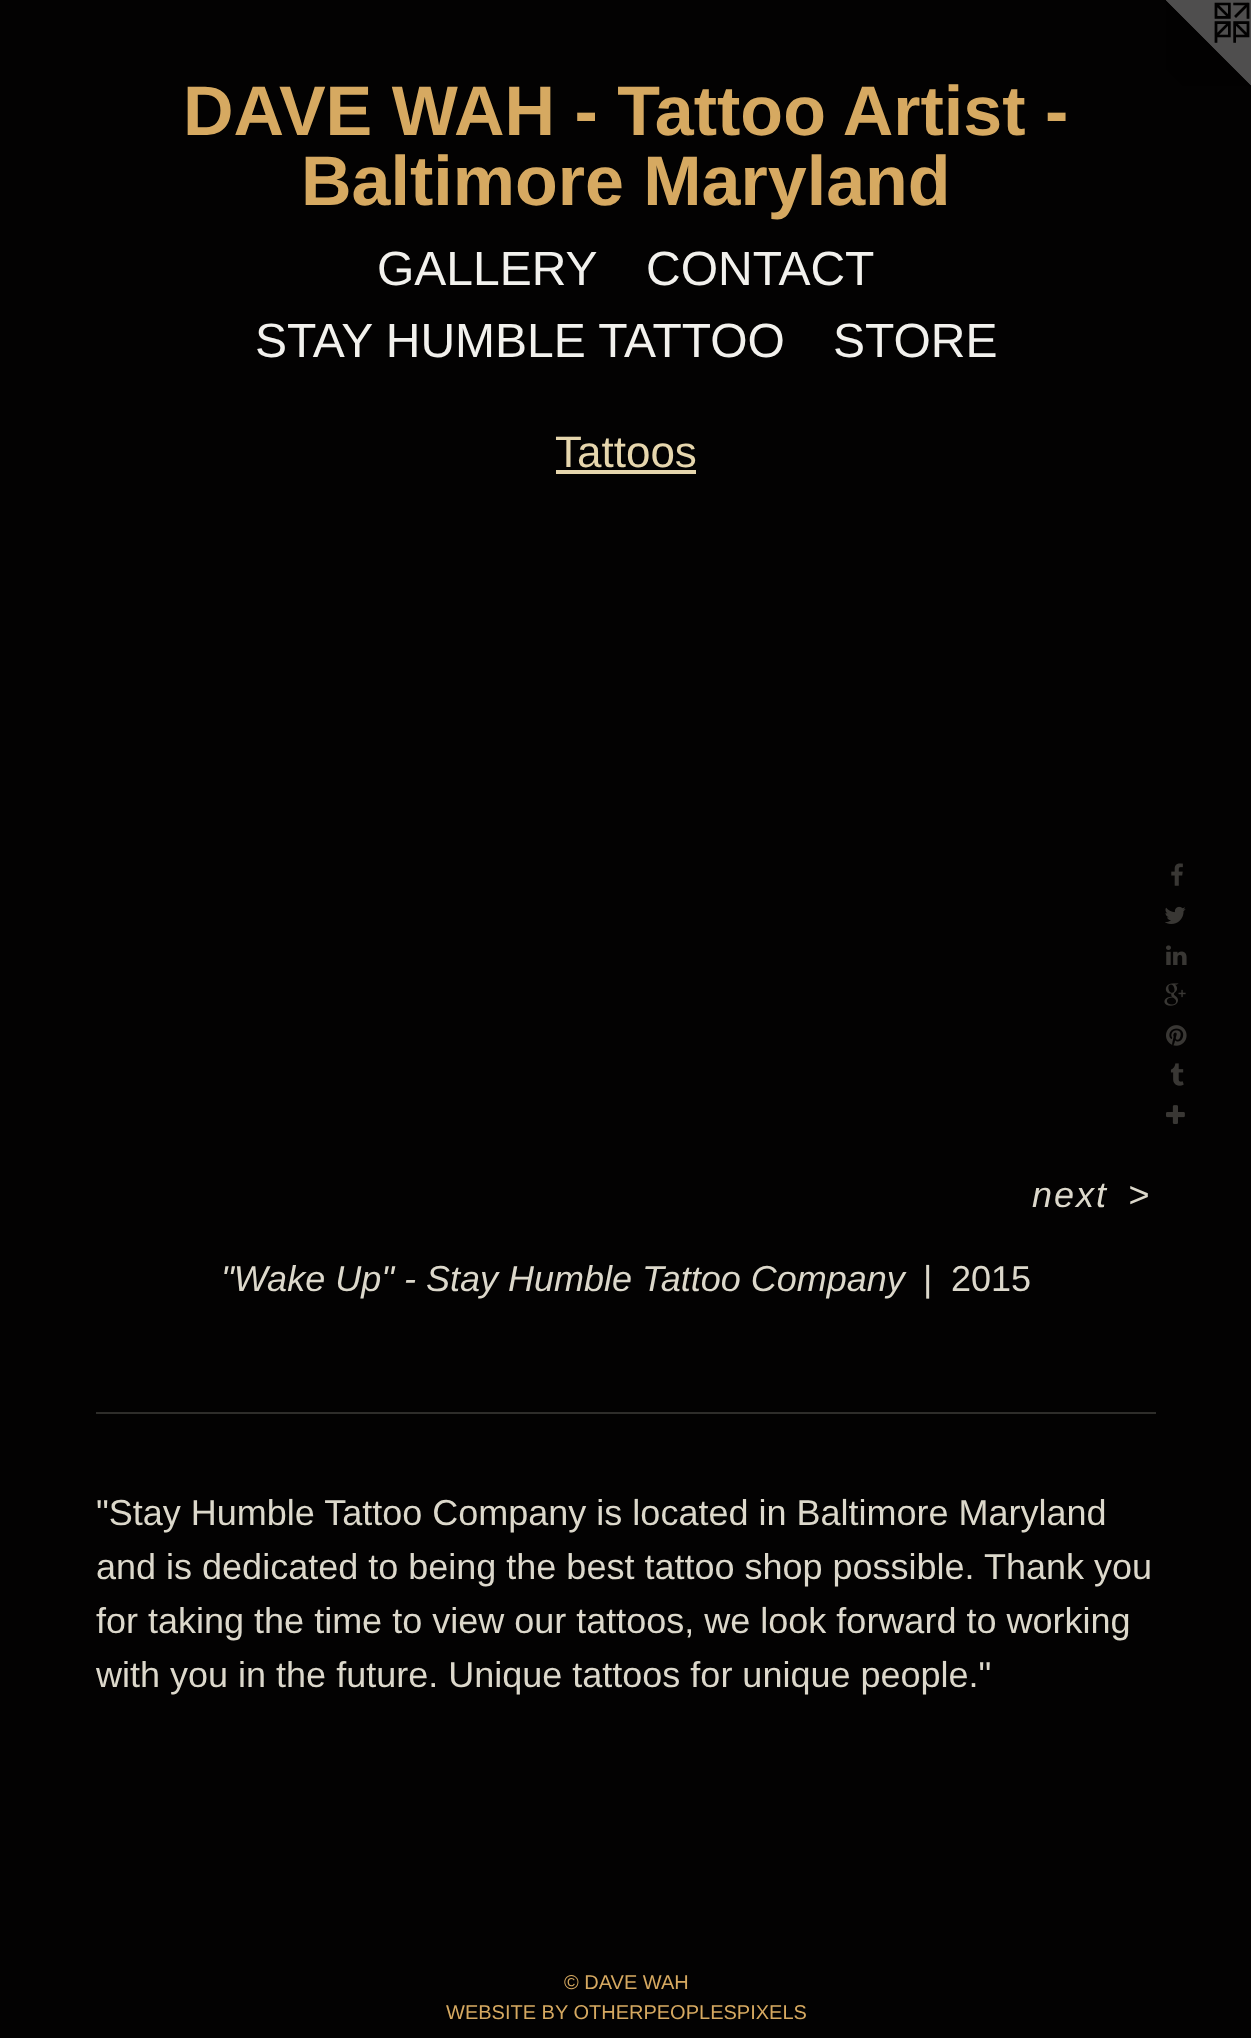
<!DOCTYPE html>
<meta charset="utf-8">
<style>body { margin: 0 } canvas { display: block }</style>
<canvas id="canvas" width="1251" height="2038"></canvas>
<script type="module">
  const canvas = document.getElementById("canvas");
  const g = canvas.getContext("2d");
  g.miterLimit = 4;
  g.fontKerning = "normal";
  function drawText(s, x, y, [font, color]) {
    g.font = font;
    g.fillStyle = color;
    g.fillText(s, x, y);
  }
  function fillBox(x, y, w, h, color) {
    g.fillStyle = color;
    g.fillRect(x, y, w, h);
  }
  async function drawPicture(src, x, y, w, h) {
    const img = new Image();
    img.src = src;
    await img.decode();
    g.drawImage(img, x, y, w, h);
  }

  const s1 = ["bold 70px Liberation Sans", "#D6A961"];
  const s2 = ["48px Liberation Sans", "#F2F1ED"];
  const s3 = ["44px Liberation Sans", "#E6D6AD"];
  const s4 = ["italic 36px Liberation Sans", "#DCD8CB"];
  const s5 = ["36px Liberation Sans", "#DCD8CB"];
  const s6 = ["20px Liberation Sans", "#D6A961"];

  fillBox(0, 0, 1251, 2038, "#030202");
  await drawPicture("pic1.png", 1166, 0, 85, 86);
  drawText("DAVE WAH - Tattoo Artist -", 183, 135, s1);
  drawText("Baltimore Maryland", 301, 205, s1);
  drawText("GALLERY", 377, 285, s2);
  drawText("CONTACT", 646, 285, s2);
  drawText("STAY HUMBLE TATTOO", 255, 357, s2);
  drawText("STORE", 833, 357, s2);
  drawText("Tattoos", 555, 467, s3);
  fillBox(556, 470, 140, 4, "#E6D6AD");
  await drawPicture("pic2.png", 1171, 863, 12, 23);
  await drawPicture("pic3.png", 1165, 906, 21, 18);
  await drawPicture("pic4.png", 1166, 945, 21, 20);
  await drawPicture("pic5.png", 1164, 983, 22, 23);
  await drawPicture("pic6.png", 1166, 1025, 21, 21);
  await drawPicture("pic7.png", 1170, 1063, 14, 23);
  await drawPicture("pic8.png", 1166, 1105, 19, 19);
  g.letterSpacing = "2px";
  drawText("next", 1032, 1207, s4);
  drawText(">", 1128, 1207, s4);
  g.letterSpacing = "0px";
  drawText("\"Wake Up\" - Stay Humble Tattoo Company", 221, 1291, s4);
  drawText("|", 923, 1291, s5);
  drawText("2015", 951, 1291, s5);
  fillBox(96, 1412, 1060, 2, "#2E2D2A");
  drawText("\"Stay Humble Tattoo Company is located in Baltimore Maryland", 96, 1525, s5);
  drawText("and is dedicated to being the best tattoo shop possible. Thank you", 96, 1579, s5);
  drawText("for taking the time to view our tattoos, we look forward to working", 96, 1633, s5);
  drawText("with you in the future. Unique tattoos for unique people.\"", 96, 1687, s5);
  drawText("© DAVE WAH", 564, 1989, s6);
  drawText("WEBSITE BY OTHERPEOPLESPIXELS", 446, 2019, s6);
</script>
